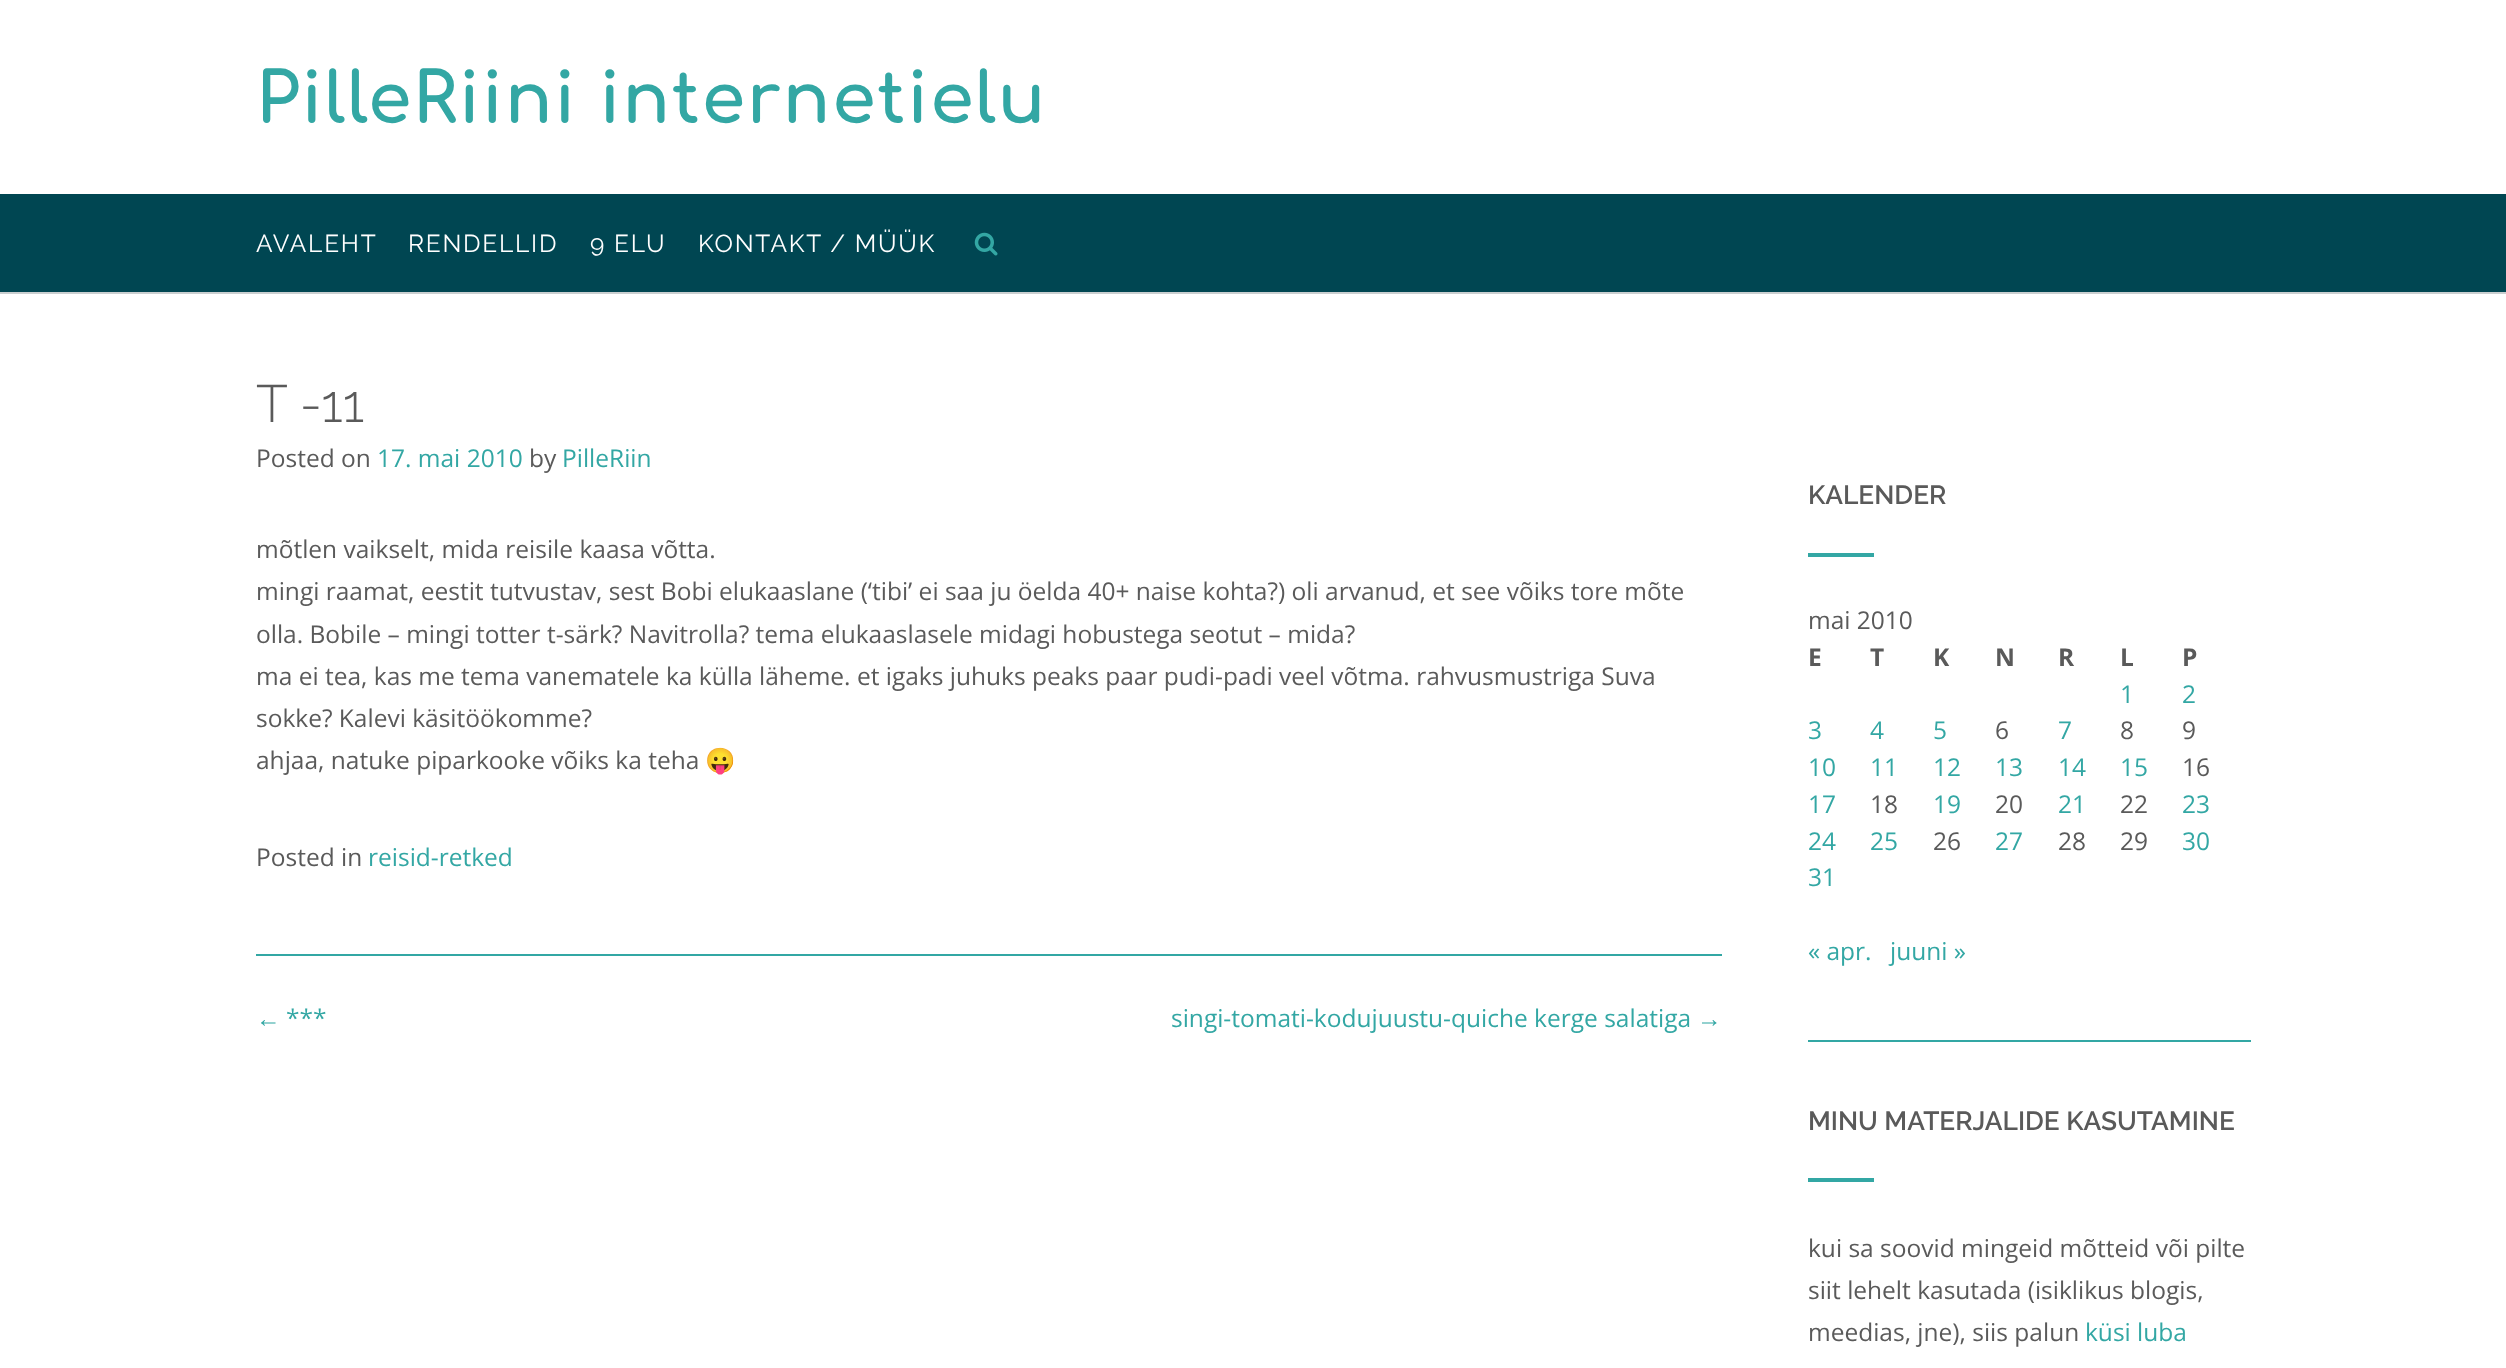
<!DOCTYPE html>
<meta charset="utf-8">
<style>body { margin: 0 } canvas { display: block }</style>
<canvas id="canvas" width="2506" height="1368"></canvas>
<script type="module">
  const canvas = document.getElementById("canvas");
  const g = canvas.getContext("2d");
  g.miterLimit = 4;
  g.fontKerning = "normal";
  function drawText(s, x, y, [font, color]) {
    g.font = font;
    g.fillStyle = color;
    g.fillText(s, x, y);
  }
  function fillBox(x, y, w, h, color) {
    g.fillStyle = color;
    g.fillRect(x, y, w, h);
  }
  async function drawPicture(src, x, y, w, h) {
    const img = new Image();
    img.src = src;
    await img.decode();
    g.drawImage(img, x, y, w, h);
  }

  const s1 = ["bold 70px Comfortaa", "#33A7A4"];
  const s2 = ["24.5px Raleway", "#FFFFFF"];
  const s3 = ["300 52.5px Raleway", "#5A5A5A"];
  const s4 = ["24.5px Open Sans", "#5A5A5A"];
  const s5 = ["24.5px Open Sans", "#33A7A4"];
  const s6 = ["24.5px Noto Color Emoji", "#5A5A5A"];
  const s7 = ["24.5px Liberation Sans", "#33A7A4"];
  const s8 = ["600 26.25px Raleway", "#5A5A5A"];
  const s9 = ["bold 24.5px Open Sans", "#5A5A5A"];

  fillBox(0, 0, 2506, 1368, "#FFFFFF");
  g.letterSpacing = "1.75px";
  drawText("PilleRiini internetielu", 256, 123, s1);
  fillBox(0, 194, 2506, 98, "#004652");
  fillBox(0, 292, 2506, 2, "#CACFD0");
  drawText("AVALEHT", 256, 252, s2);
  drawText("RENDELLID", 408, 252, s2);
  drawText("9 ELU", 590, 252, s2);
  drawText("KONTAKT / MÜÜK", 698, 252, s2);
  await drawPicture("pic1.png", 974, 232, 24, 24);
  fillBox(256, 954, 1466, 2, "#33A7A4");
  g.letterSpacing = "0px";
  drawText("T -11", 256, 422, s3);
  drawText("Posted on", 256, 467, s4);
  drawText("17. mai 2010", 377, 467, s5);
  drawText("by", 529, 467, s4);
  drawText("PilleRiin", 562, 467, s5);
  drawText("mõtlen vaikselt, mida reisile kaasa võtta.", 256, 558, s4);
  drawText("mingi raamat, eestit tutvustav, sest Bobi elukaaslane (‘tibi’ ei saa ju öelda 40+ naise kohta?) oli arvanud, et see võiks tore mõte", 256, 600, s4);
  drawText("olla. Bobile – mingi totter t-särk? Navitrolla? tema elukaaslasele midagi hobustega seotut – mida?", 256, 643, s4);
  drawText("ma ei tea, kas me tema vanematele ka külla läheme. et igaks juhuks peaks paar pudi-padi veel võtma. rahvusmustriga Suva", 256, 685, s4);
  drawText("sokke? Kalevi käsitöökomme?", 256, 727, s4);
  drawText("ahjaa, natuke piparkooke võiks ka teha", 256, 769, s4);
  drawText("😛", 705, 769, s6);
  drawText("Posted in", 256, 866, s4);
  drawText("reisid-retked", 368, 866, s5);
  drawText("***", 286, 1027, s5);
  drawText("←", 256, 1027, s7);
  drawText("singi-tomati-kodujuustu-quiche kerge salatiga", 1171, 1027, s5);
  drawText("→", 1697, 1027, s7);
  fillBox(1808, 1040, 443, 2, "#33A7A4");
  drawText("KALENDER", 1808, 504, s8);
  fillBox(1808, 553, 66, 4, "#33A7A4");
  drawText("mai 2010", 1808, 629, s4);
  drawText("E", 1808, 666, s9);
  drawText("T", 1870, 666, s9);
  drawText("K", 1933, 666, s9);
  drawText("N", 1995, 666, s9);
  drawText("R", 2058, 666, s9);
  drawText("L", 2120, 666, s9);
  drawText("P", 2182, 666, s9);
  drawText("1", 2120, 703, s5);
  drawText("2", 2182, 703, s5);
  drawText("3", 1808, 739, s5);
  drawText("4", 1870, 739, s5);
  drawText("5", 1933, 739, s5);
  drawText("6", 1995, 739, s4);
  drawText("7", 2058, 739, s5);
  drawText("8", 2120, 739, s4);
  drawText("9", 2182, 739, s4);
  drawText("10", 1808, 776, s5);
  drawText("11", 1870, 776, s5);
  drawText("12", 1933, 776, s5);
  drawText("13", 1995, 776, s5);
  drawText("14", 2058, 776, s5);
  drawText("15", 2120, 776, s5);
  drawText("16", 2182, 776, s4);
  drawText("17", 1808, 813, s5);
  drawText("18", 1870, 813, s4);
  drawText("19", 1933, 813, s5);
  drawText("20", 1995, 813, s4);
  drawText("21", 2058, 813, s5);
  drawText("22", 2120, 813, s4);
  drawText("23", 2182, 813, s5);
  drawText("24", 1808, 850, s5);
  drawText("25", 1870, 850, s5);
  drawText("26", 1933, 850, s4);
  drawText("27", 1995, 850, s5);
  drawText("28", 2058, 850, s4);
  drawText("29", 2120, 850, s4);
  drawText("30", 2182, 850, s5);
  drawText("31", 1808, 886, s5);
  drawText("« apr.", 1808, 960, s5);
  drawText("juuni »", 1890, 960, s5);
  drawText("MINU MATERJALIDE KASUTAMINE", 1808, 1130, s8);
  fillBox(1808, 1178, 66, 4, "#33A7A4");
  drawText("kui sa soovid mingeid mõtteid või pilte", 1808, 1257, s4);
  drawText("siit lehelt kasutada (isiklikus blogis,", 1808, 1299, s4);
  drawText("meedias, jne), siis palun", 1808, 1341, s4);
  drawText("küsi luba", 2085, 1341, s5);
</script>
